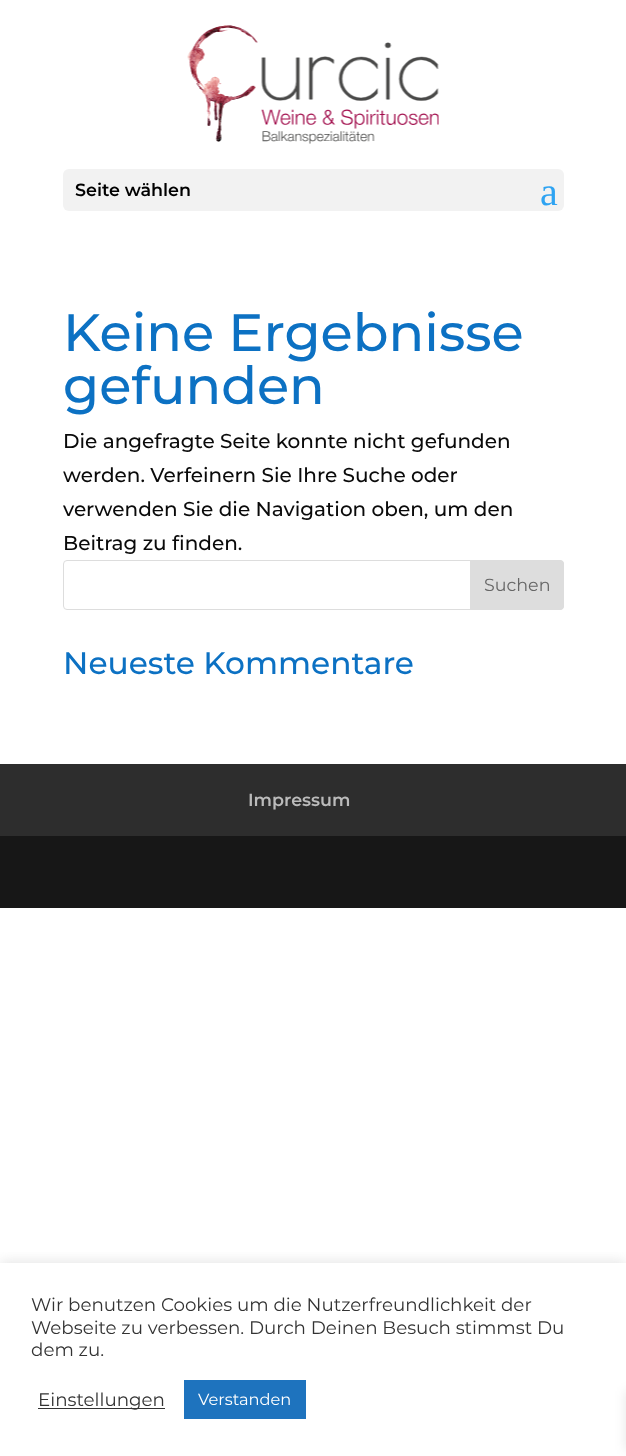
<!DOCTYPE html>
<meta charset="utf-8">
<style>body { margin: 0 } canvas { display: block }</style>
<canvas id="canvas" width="626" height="1456"></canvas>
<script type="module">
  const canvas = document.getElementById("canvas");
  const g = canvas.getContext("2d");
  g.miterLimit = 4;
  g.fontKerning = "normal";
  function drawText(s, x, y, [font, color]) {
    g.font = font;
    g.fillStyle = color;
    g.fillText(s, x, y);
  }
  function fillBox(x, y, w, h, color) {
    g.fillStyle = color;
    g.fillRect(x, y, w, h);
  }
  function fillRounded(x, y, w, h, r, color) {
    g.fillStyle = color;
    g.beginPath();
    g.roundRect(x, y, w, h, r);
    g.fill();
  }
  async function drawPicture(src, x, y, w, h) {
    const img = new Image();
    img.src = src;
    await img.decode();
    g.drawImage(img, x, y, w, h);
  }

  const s1 = ["100 17.5px 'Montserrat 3'", "#000000"];
  const s2 = ["40px Liberation Serif", "#2EA3F2"];
  const s3 = ["100 52.5px Montserrat", "#0C71C3"];
  const s4 = ["100 20px Montserrat", "#0A0A0A"];
  const s5 = ["100 17.5px 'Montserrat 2'", "#666666"];
  const s6 = ["100 31.25px Montserrat", "#0C71C3"];
  const s7 = ["100 17.5px 'Montserrat 3'", "#BBBBBB"];
  const s8 = ["100 18.3px 'Montserrat 2'", "#333333"];
  const s9 = ["100 16.25px 'Montserrat 2'", "#FFFFFF"];

  fillBox(0, 0, 626, 1456, "#FFFFFF");
  await drawPicture("pic1.png", 187, 25, 252, 119);
  fillRounded(63, 169, 501, 42, 6, "#F2F2F2");
  drawText("Seite wählen", 75, 196, s1);
  drawText("a", 540, 205, s2);
  drawText("Keine Ergebnisse", 63, 351, s3);
  drawText("gefunden", 63, 404, s3);
  drawText("Die angefragte Seite konnte nicht gefunden", 63, 448, s4);
  drawText("werden. Verfeinern Sie Ihre Suche oder", 63, 482, s4);
  drawText("verwenden Sie die Navigation oben, um den", 63, 516, s4);
  drawText("Beitrag zu finden.", 63, 550, s4);
  g.beginPath();
  g.roundRect(63.5, 560.5, 500, 49, 3.5);
  g.strokeStyle = "#DDDDDD";
  g.stroke();
  g.fillStyle = "#DDDDDD";
  g.beginPath();
  g.roundRect(470.5, 560.5, 93, 49, [0, 3.5, 3.5, 0]);
  g.fill();
  g.stroke();
  drawText("Suchen", 484, 591, s5);
  drawText("Neueste Kommentare", 63, 674, s6);
  fillBox(0, 764, 626, 72, "#2D2D2D");
  drawText("Impressum", 248, 806, s7);
  fillBox(0, 836, 626, 72, "#171717");
  g.save();
  g.beginPath();
  g.rect(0, 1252, 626, 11);
  g.clip();
  g.fillStyle = "rgba(172, 171, 171, 0.3)";
  g.filter = "blur(6px)";
  g.beginPath();
  g.rect(0, 1261, 626, 194);
  g.fill();
  g.filter = "none";
  g.restore();
  drawText("Wir benutzen Cookies um die Nutzerfreundlichkeit der", 31, 1311, s8);
  drawText("Webseite zu verbessen. Durch Deinen Besuch stimmst Du", 31, 1334, s8);
  drawText("dem zu.", 31, 1356, s8);
  fillBox(38, 1408, 127, 1, "#333333");
  drawText("Einstellungen", 38, 1406, s8);
  fillBox(184, 1380, 122, 39, "#1E73BE");
  drawText("Verstanden", 198, 1405, s9);
  g.fillStyle = "rgba(0, 0, 0, 0.1)";
  g.filter = "blur(6px)";
  g.beginPath();
  g.rect(626, 1391, 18, 59);
  g.fill();
  g.filter = "none";
</script>
